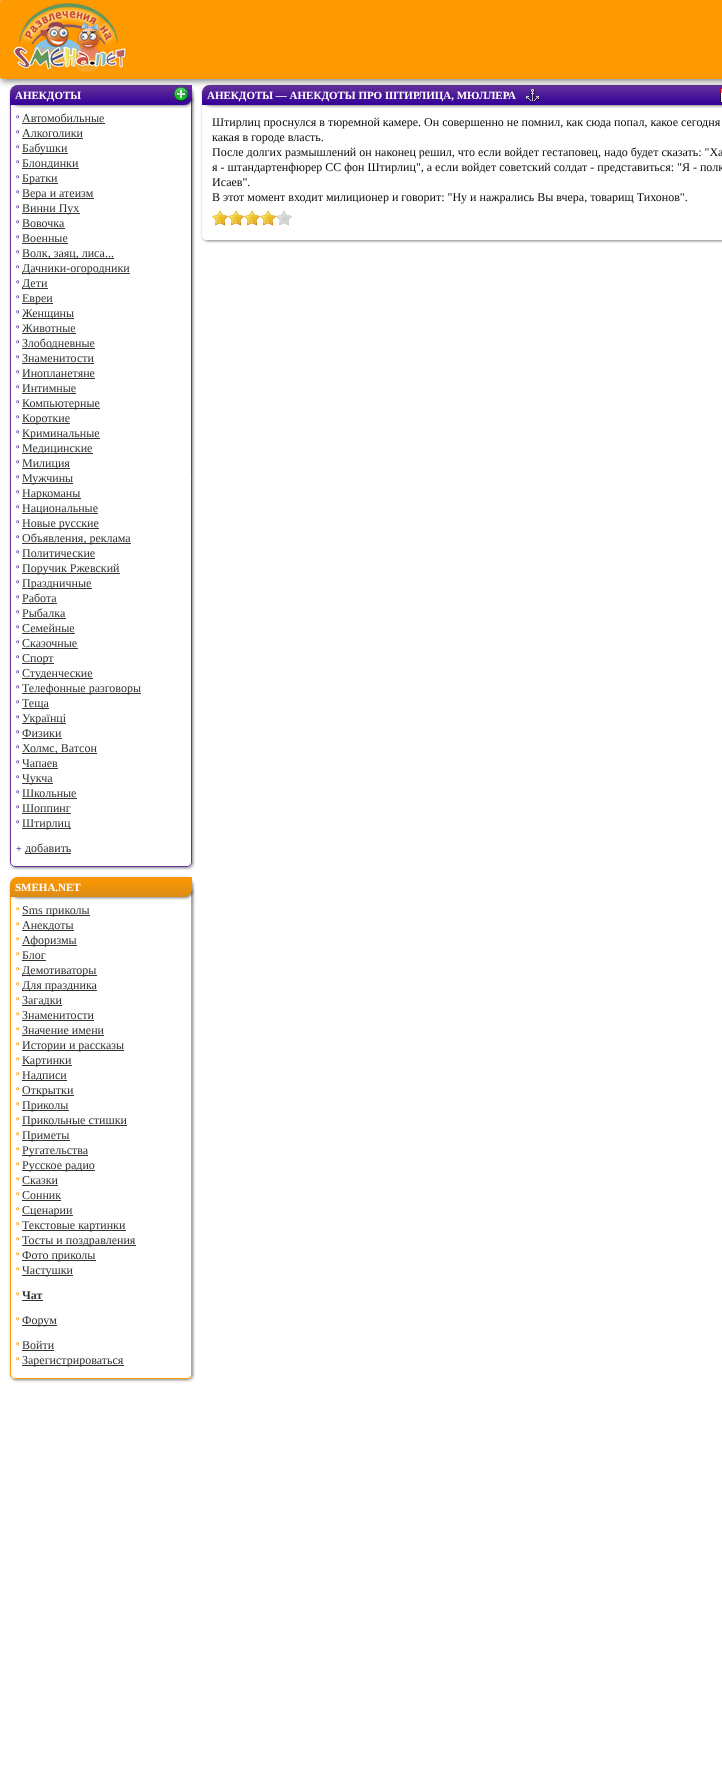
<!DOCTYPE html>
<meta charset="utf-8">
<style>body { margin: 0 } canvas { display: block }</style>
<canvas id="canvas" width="722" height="1775"></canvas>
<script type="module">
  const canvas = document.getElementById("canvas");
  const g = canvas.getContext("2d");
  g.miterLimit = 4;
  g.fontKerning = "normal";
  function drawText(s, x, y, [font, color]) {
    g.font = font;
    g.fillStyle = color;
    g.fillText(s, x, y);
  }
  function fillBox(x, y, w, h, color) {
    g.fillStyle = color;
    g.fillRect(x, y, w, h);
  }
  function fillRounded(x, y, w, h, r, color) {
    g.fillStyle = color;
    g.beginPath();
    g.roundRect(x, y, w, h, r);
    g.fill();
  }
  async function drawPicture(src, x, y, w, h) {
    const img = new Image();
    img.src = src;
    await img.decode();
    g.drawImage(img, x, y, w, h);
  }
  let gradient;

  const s1 = ["bold 11px Liberation Serif", "#FFFFFF"];
  const s2 = ["bold 10px Liberation Serif", "#663399"];
  const s3 = ["12px Liberation Serif", "#333333"];
  const s4 = ["bold 10px Liberation Serif", "#FF9900"];
  const s5 = ["bold 12px Liberation Serif", "#333333"];
  const s6 = ["12px Liberation Serif", "#0B0B0B"];

  fillBox(0, 0, 722, 1775, "#FFFFFF");
  fillBox(0, 0, 3, 77, "#FFCC66");
  g.save();
  g.beginPath();
  g.moveTo(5, 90);
  g.lineTo(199, 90);
  g.lineTo(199, 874);
  g.lineTo(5, 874);
  g.closePath();
  g.moveTo(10, 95);
  g.lineTo(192, 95);
  g.lineTo(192, 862);
  g.bezierCurveTo(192, 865, 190, 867, 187, 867);
  g.lineTo(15, 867);
  g.bezierCurveTo(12, 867, 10, 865, 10, 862);
  g.closePath();
  g.clip("evenodd");
  g.fillStyle = "rgba(0, 0, 0, 0.5)";
  g.filter = "blur(1.5px)";
  g.beginPath();
  g.roundRect(11, 96, 182, 772, 5);
  g.fill();
  g.filter = "none";
  g.restore();
  g.beginPath();
  g.roundRect(10.5, 95.5, 181, 771, [0, 0, 4.5, 4.5]);
  g.strokeStyle = "#663399";
  g.stroke();
  g.fillStyle = "rgba(0, 0, 0, 0.5)";
  g.filter = "blur(1.5px)";
  g.beginPath();
  g.roundRect(11, 86, 182, 20, 8);
  g.fill();
  g.filter = "none";
  gradient = g.createLinearGradient(10, 105, 10, 85);
  gradient.addColorStop(0, "#330099");
  gradient.addColorStop(1, "#663399");
  g.fillStyle = gradient;
  g.beginPath();
  g.roundRect(10, 85, 182, 20, [8, 0, 8, 0]);
  g.fill();
  await drawPicture("pic2.png", 174, 87, 14, 15);
  g.fillStyle = "rgba(0, 0, 0, 0.5)";
  g.filter = "blur(1.5px)";
  g.beginPath();
  g.roundRect(203, 86, 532, 20, 8);
  g.fill();
  g.filter = "none";
  g.save();
  g.beginPath();
  g.moveTo(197, 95);
  g.lineTo(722, 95);
  g.lineTo(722, 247);
  g.lineTo(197, 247);
  g.closePath();
  g.moveTo(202, 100);
  g.lineTo(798, 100);
  g.lineTo(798, 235);
  g.bezierCurveTo(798, 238, 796, 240, 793, 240);
  g.lineTo(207, 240);
  g.bezierCurveTo(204, 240, 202, 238, 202, 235);
  g.closePath();
  g.clip("evenodd");
  g.filter = "blur(1.5px)";
  g.beginPath();
  g.roundRect(203, 101, 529, 140, 5);
  g.fill();
  g.filter = "none";
  g.restore();
  gradient = g.createLinearGradient(202, 105, 202, 85);
  gradient.addColorStop(0, "#330099");
  gradient.addColorStop(1, "#663399");
  g.fillStyle = gradient;
  g.beginPath();
  g.moveTo(210, 85);
  g.lineTo(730, 85);
  g.lineTo(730, 97);
  g.bezierCurveTo(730, 101.5, 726.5, 105, 722, 105);
  g.lineTo(202, 105);
  g.lineTo(202, 93);
  g.bezierCurveTo(202, 88.5, 205.5, 85, 210, 85);
  g.closePath();
  g.fill();
  await drawPicture("pic3.png", 525, 89, 15, 12);
  await drawPicture("pic4.png", 719, 88, 3, 15);
  g.fillStyle = "rgba(0, 0, 0, 0.5)";
  g.filter = "blur(3px)";
  g.beginPath();
  g.roundRect(1, 2, 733, 79, 3);
  g.fill();
  g.filter = "none";
  fillRounded(0, 0, 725, 79, 3, "#FF9900");
  await drawPicture("pic1.png", 12, 3, 115, 69);
  drawText("АНЕКДОТЫ", 15, 99, s1);
  drawText("º", 16, 122, s2);
  drawText("Автомобильные", 22, 122, s3);
  fillBox(22, 123, 83, 1, "#333333");
  drawText("º", 16, 137, s2);
  drawText("Алкоголики", 22, 137, s3);
  fillBox(22, 138, 61, 1, "#333333");
  drawText("º", 16, 152, s2);
  fillBox(22, 153, 46, 1, "#333333");
  drawText("Бабушки", 22, 152, s3);
  drawText("º", 16, 167, s2);
  fillBox(22, 168, 57, 1, "#333333");
  drawText("Блондинки", 22, 167, s3);
  drawText("º", 16, 182, s2);
  fillBox(22, 183, 36, 1, "#333333");
  drawText("Братки", 22, 182, s3);
  drawText("º", 16, 197, s2);
  fillBox(22, 198, 72, 1, "#333333");
  drawText("Вера и атеизм", 22, 197, s3);
  drawText("º", 16, 212, s2);
  fillBox(22, 213, 58, 1, "#333333");
  drawText("Винни Пух", 22, 212, s3);
  drawText("º", 16, 227, s2);
  drawText("Вовочка", 22, 227, s3);
  fillBox(22, 228, 43, 1, "#333333");
  drawText("º", 16, 242, s2);
  drawText("Военные", 22, 242, s3);
  fillBox(22, 243, 46, 1, "#333333");
  drawText("º", 16, 257, s2);
  fillBox(22, 258, 92, 1, "#333333");
  drawText("Волк, заяц, лиса...", 22, 257, s3);
  drawText("º", 16, 272, s2);
  fillBox(22, 273, 108, 1, "#333333");
  drawText("Дачники-огородники", 22, 272, s3);
  drawText("º", 16, 287, s2);
  fillBox(22, 288, 26, 1, "#333333");
  drawText("Дети", 22, 287, s3);
  drawText("º", 16, 302, s2);
  fillBox(22, 303, 31, 1, "#333333");
  drawText("Евреи", 22, 302, s3);
  drawText("º", 16, 317, s2);
  fillBox(22, 318, 52, 1, "#333333");
  drawText("Женщины", 22, 317, s3);
  drawText("º", 16, 332, s2);
  drawText("Животные", 22, 332, s3);
  fillBox(22, 333, 54, 1, "#333333");
  drawText("º", 16, 347, s2);
  fillBox(22, 348, 73, 1, "#333333");
  drawText("Злободневные", 22, 347, s3);
  drawText("º", 16, 362, s2);
  drawText("Знаменитости", 22, 362, s3);
  fillBox(22, 363, 72, 1, "#333333");
  drawText("º", 16, 377, s2);
  drawText("Инопланетяне", 22, 377, s3);
  fillBox(22, 378, 73, 1, "#333333");
  drawText("º", 16, 392, s2);
  drawText("Интимные", 22, 392, s3);
  fillBox(22, 393, 54, 1, "#333333");
  drawText("º", 16, 407, s2);
  fillBox(22, 408, 78, 1, "#333333");
  drawText("Компьютерные", 22, 407, s3);
  drawText("º", 16, 422, s2);
  fillBox(22, 423, 48, 1, "#333333");
  drawText("Короткие", 22, 422, s3);
  drawText("º", 16, 437, s2);
  fillBox(22, 438, 78, 1, "#333333");
  drawText("Криминальные", 22, 437, s3);
  drawText("º", 16, 452, s2);
  fillBox(22, 453, 71, 1, "#333333");
  drawText("Медицинские", 22, 452, s3);
  drawText("º", 16, 467, s2);
  fillBox(22, 468, 48, 1, "#333333");
  drawText("Милиция", 22, 467, s3);
  drawText("º", 16, 482, s2);
  fillBox(22, 483, 51, 1, "#333333");
  drawText("Мужчины", 22, 482, s3);
  drawText("º", 16, 497, s2);
  fillBox(22, 498, 59, 1, "#333333");
  drawText("Наркоманы", 22, 497, s3);
  drawText("º", 16, 512, s2);
  fillBox(22, 513, 76, 1, "#333333");
  drawText("Национальные", 22, 512, s3);
  drawText("º", 16, 527, s2);
  fillBox(22, 528, 77, 1, "#333333");
  drawText("Новые русские", 22, 527, s3);
  drawText("º", 16, 542, s2);
  fillBox(22, 543, 109, 1, "#333333");
  drawText("Объявления, реклама", 22, 542, s3);
  drawText("º", 16, 557, s2);
  drawText("Политические", 22, 557, s3);
  fillBox(22, 558, 73, 1, "#333333");
  drawText("º", 16, 572, s2);
  fillBox(22, 573, 98, 1, "#333333");
  drawText("Поручик Ржевский", 22, 572, s3);
  drawText("º", 16, 587, s2);
  fillBox(22, 588, 70, 1, "#333333");
  drawText("Праздничные", 22, 587, s3);
  drawText("º", 16, 602, s2);
  drawText("Работа", 22, 602, s3);
  fillBox(22, 603, 35, 1, "#333333");
  drawText("º", 16, 617, s2);
  drawText("Рыбалка", 22, 617, s3);
  fillBox(22, 618, 44, 1, "#333333");
  drawText("º", 16, 632, s2);
  drawText("Семейные", 22, 632, s3);
  fillBox(22, 633, 53, 1, "#333333");
  drawText("º", 16, 647, s2);
  drawText("Сказочные", 22, 647, s3);
  fillBox(22, 648, 56, 1, "#333333");
  drawText("º", 16, 662, s2);
  fillBox(22, 663, 32, 1, "#333333");
  drawText("Спорт", 22, 662, s3);
  drawText("º", 16, 677, s2);
  fillBox(22, 678, 71, 1, "#333333");
  drawText("Студенческие", 22, 677, s3);
  drawText("º", 16, 692, s2);
  fillBox(22, 693, 119, 1, "#333333");
  drawText("Телефонные разговоры", 22, 692, s3);
  drawText("º", 16, 707, s2);
  fillBox(22, 708, 27, 1, "#333333");
  drawText("Теща", 22, 707, s3);
  drawText("º", 16, 722, s2);
  fillBox(22, 723, 44, 1, "#333333");
  drawText("Українці", 22, 722, s3);
  drawText("º", 16, 737, s2);
  drawText("Физики", 22, 737, s3);
  fillBox(22, 738, 40, 1, "#333333");
  drawText("º", 16, 752, s2);
  fillBox(22, 753, 75, 1, "#333333");
  drawText("Холмс, Ватсон", 22, 752, s3);
  drawText("º", 16, 767, s2);
  drawText("Чапаев", 22, 767, s3);
  fillBox(22, 768, 36, 1, "#333333");
  drawText("º", 16, 782, s2);
  fillBox(22, 783, 31, 1, "#333333");
  drawText("Чукча", 22, 782, s3);
  drawText("º", 16, 797, s2);
  drawText("Школьные", 22, 797, s3);
  fillBox(22, 798, 55, 1, "#333333");
  drawText("º", 16, 812, s2);
  drawText("Шоппинг", 22, 812, s3);
  fillBox(22, 813, 49, 1, "#333333");
  drawText("º", 16, 827, s2);
  fillBox(22, 828, 49, 1, "#333333");
  drawText("Штирлиц", 22, 827, s3);
  drawText("+", 16, 852, s2);
  fillBox(25, 853, 46, 1, "#333333");
  drawText("добавить", 25, 852, s3);
  g.save();
  g.beginPath();
  g.moveTo(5, 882);
  g.lineTo(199, 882);
  g.lineTo(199, 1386);
  g.lineTo(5, 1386);
  g.closePath();
  g.moveTo(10, 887);
  g.lineTo(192, 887);
  g.lineTo(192, 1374);
  g.bezierCurveTo(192, 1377, 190, 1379, 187, 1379);
  g.lineTo(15, 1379);
  g.bezierCurveTo(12, 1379, 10, 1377, 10, 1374);
  g.closePath();
  g.clip("evenodd");
  g.fillStyle = "rgba(0, 0, 0, 0.5)";
  g.filter = "blur(1.5px)";
  g.beginPath();
  g.roundRect(11, 888, 182, 492, 5);
  g.fill();
  g.filter = "none";
  g.restore();
  g.beginPath();
  g.roundRect(10.5, 887.5, 181, 491, [0, 0, 4.5, 4.5]);
  g.strokeStyle = "#FF9900";
  g.stroke();
  g.fillStyle = "rgba(0, 0, 0, 0.5)";
  g.filter = "blur(1.5px)";
  g.beginPath();
  g.roundRect(11, 878, 182, 20, 8);
  g.fill();
  g.filter = "none";
  gradient = g.createLinearGradient(10, 897, 10, 877);
  gradient.addColorStop(0, "#DB8C15");
  gradient.addColorStop(1, "#FF9900");
  g.fillStyle = gradient;
  g.beginPath();
  g.roundRect(10, 877, 182, 20, [8, 0, 8, 0]);
  g.fill();
  drawText("SMEHA.NET", 15, 891, s1);
  drawText("º", 16, 914, s4);
  fillBox(22, 915, 68, 1, "#333333");
  drawText("Sms приколы", 22, 914, s3);
  drawText("º", 16, 929, s4);
  fillBox(22, 930, 52, 1, "#333333");
  drawText("Анекдоты", 22, 929, s3);
  drawText("º", 16, 944, s4);
  fillBox(22, 945, 55, 1, "#333333");
  drawText("Афоризмы", 22, 944, s3);
  drawText("º", 16, 959, s4);
  drawText("Блог", 22, 959, s3);
  fillBox(22, 960, 24, 1, "#333333");
  drawText("º", 16, 974, s4);
  fillBox(22, 975, 75, 1, "#333333");
  drawText("Демотиваторы", 22, 974, s3);
  drawText("º", 16, 989, s4);
  fillBox(22, 990, 75, 1, "#333333");
  drawText("Для праздника", 22, 989, s3);
  drawText("º", 16, 1004, s4);
  fillBox(22, 1005, 40, 1, "#333333");
  drawText("Загадки", 22, 1004, s3);
  drawText("º", 16, 1019, s4);
  drawText("Знаменитости", 22, 1019, s3);
  fillBox(22, 1020, 72, 1, "#333333");
  drawText("º", 16, 1034, s4);
  drawText("Значение имени", 22, 1034, s3);
  fillBox(22, 1035, 82, 1, "#333333");
  drawText("º", 16, 1049, s4);
  fillBox(22, 1050, 102, 1, "#333333");
  drawText("Истории и рассказы", 22, 1049, s3);
  drawText("º", 16, 1064, s4);
  fillBox(22, 1065, 50, 1, "#333333");
  drawText("Картинки", 22, 1064, s3);
  drawText("º", 16, 1079, s4);
  fillBox(22, 1080, 45, 1, "#333333");
  drawText("Надписи", 22, 1079, s3);
  drawText("º", 16, 1094, s4);
  fillBox(22, 1095, 52, 1, "#333333");
  drawText("Открытки", 22, 1094, s3);
  drawText("º", 16, 1109, s4);
  fillBox(22, 1110, 47, 1, "#333333");
  drawText("Приколы", 22, 1109, s3);
  drawText("º", 16, 1124, s4);
  fillBox(22, 1125, 105, 1, "#333333");
  drawText("Прикольные стишки", 22, 1124, s3);
  drawText("º", 16, 1139, s4);
  fillBox(22, 1140, 48, 1, "#333333");
  drawText("Приметы", 22, 1139, s3);
  drawText("º", 16, 1154, s4);
  fillBox(22, 1155, 66, 1, "#333333");
  drawText("Ругательства", 22, 1154, s3);
  drawText("º", 16, 1169, s4);
  fillBox(22, 1170, 73, 1, "#333333");
  drawText("Русское радио", 22, 1169, s3);
  drawText("º", 16, 1184, s4);
  drawText("Сказки", 22, 1184, s3);
  fillBox(22, 1185, 36, 1, "#333333");
  drawText("º", 16, 1199, s4);
  drawText("Сонник", 22, 1199, s3);
  fillBox(22, 1200, 39, 1, "#333333");
  drawText("º", 16, 1214, s4);
  fillBox(22, 1215, 51, 1, "#333333");
  drawText("Сценарии", 22, 1214, s3);
  drawText("º", 16, 1229, s4);
  fillBox(22, 1230, 104, 1, "#333333");
  drawText("Текстовые картинки", 22, 1229, s3);
  drawText("º", 16, 1244, s4);
  fillBox(22, 1245, 114, 1, "#333333");
  drawText("Тосты и поздравления", 22, 1244, s3);
  drawText("º", 16, 1259, s4);
  fillBox(22, 1260, 74, 1, "#333333");
  drawText("Фото приколы", 22, 1259, s3);
  drawText("º", 16, 1274, s4);
  fillBox(22, 1275, 51, 1, "#333333");
  drawText("Частушки", 22, 1274, s3);
  drawText("º", 16, 1299, s4);
  drawText("Чат", 22, 1299, s5);
  fillBox(22, 1300, 21, 1, "#333333");
  drawText("º", 16, 1324, s4);
  fillBox(22, 1325, 35, 1, "#333333");
  drawText("Форум", 22, 1324, s3);
  drawText("º", 16, 1349, s4);
  drawText("Войти", 22, 1349, s3);
  fillBox(22, 1350, 32, 1, "#333333");
  drawText("º", 16, 1364, s4);
  fillBox(22, 1365, 102, 1, "#333333");
  drawText("Зарегистрироваться", 22, 1364, s3);
  drawText("АНЕКДОТЫ — АНЕКДОТЫ ПРО ШТИРЛИЦА, МЮЛЛЕРА", 207, 99, s1);
  drawText("Штирлиц проснулся в тюремной камере. Он совершенно не помнил, как сюда попал, какое сегодня", 212, 126, s6);
  drawText("какая в городе власть.", 212, 141, s6);
  drawText("После долгих размышлений он наконец решил, что если войдет гестаповец, надо будет сказать: \"Ха", 212, 156, s6);
  drawText("я - штандартенфюрер СС фон Штирлиц\", а если войдет советский солдат - представиться: \"Я - полк", 212, 171, s6);
  drawText("Исаев\".", 212, 186, s6);
  drawText("В этот момент входит милиционер и говорит: \"Ну и нажрались Вы вчера, товарищ Тихонов\".", 212, 201, s6);
  await drawPicture("pic5.png", 278, 210, 14, 16);
  await drawPicture("pic6.png", 212, 210, 66, 16);
</script>
